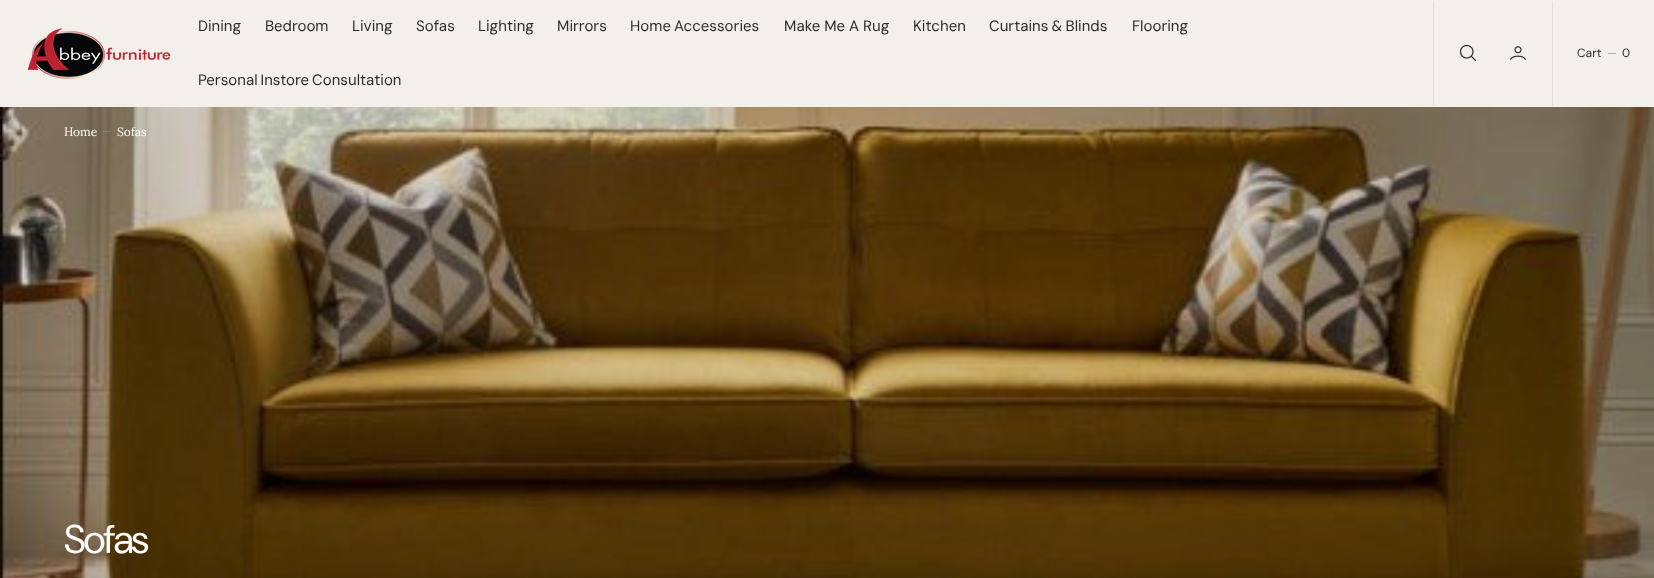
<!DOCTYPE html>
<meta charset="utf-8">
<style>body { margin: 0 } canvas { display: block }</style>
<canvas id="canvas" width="1654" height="578"></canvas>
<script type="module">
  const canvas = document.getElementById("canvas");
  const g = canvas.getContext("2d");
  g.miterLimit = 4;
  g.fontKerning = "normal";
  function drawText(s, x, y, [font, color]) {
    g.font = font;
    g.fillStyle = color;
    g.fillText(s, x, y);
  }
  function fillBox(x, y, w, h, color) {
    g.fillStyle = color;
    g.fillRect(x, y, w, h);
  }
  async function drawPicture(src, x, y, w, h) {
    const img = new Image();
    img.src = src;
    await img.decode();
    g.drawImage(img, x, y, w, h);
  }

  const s1 = ["15px 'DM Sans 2'", "#2B2B2B"];
  const s2 = ["12px 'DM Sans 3'", "#2B2B2B"];
  const s3 = ["12px Lora", "#FFFFFF"];
  const s4 = ["40px DM Sans", "#FFFFFF"];

  fillBox(0, 0, 1654, 578, "#F3F0EC");
  await drawPicture("pic1.png", 27, 28, 144, 51);
  drawText("Dining", 198, 31, s1);
  drawText("Bedroom", 265, 31, s1);
  drawText("Living", 352, 31, s1);
  drawText("Sofas", 416, 31, s1);
  drawText("Lighting", 478, 31, s1);
  drawText("Mirrors", 557, 31, s1);
  g.wordSpacing = "-1px";
  drawText("Home Accessories", 630, 31, s1);
  g.wordSpacing = "0px";
  drawText("Make Me A Rug", 784, 31, s1);
  drawText("Kitchen", 913, 31, s1);
  g.wordSpacing = "-1px";
  drawText("Curtains & Blinds", 989, 31, s1);
  g.wordSpacing = "0px";
  drawText("Flooring", 1132, 31, s1);
  g.wordSpacing = "-1px";
  drawText("Personal Instore Consultation", 198, 85, s1);
  fillBox(1433, 1, 1, 105, "#E2DDD5");
  await drawPicture("pic2.png", 1459, 44, 18, 18);
  await drawPicture("pic3.png", 1510, 46, 16, 14);
  fillBox(1552, 1, 1, 105, "#E2DDD5");
  g.wordSpacing = "0px";
  drawText("Cart", 1577, 57, s2);
  fillBox(1608, 53, 8, 1, "#B7B5B2");
  drawText("0", 1622, 57, s2);
  await drawPicture("pic4.png", 0, 107, 1654, 471);
  drawText("Home", 64, 136, s3);
  fillBox(103, 131, 8, 1, "rgba(255, 255, 255, 0.15)");
  drawText("Sofas", 117, 136, s3);
  g.letterSpacing = "-2px";
  drawText("Sofas", 64, 553, s4);
</script>
